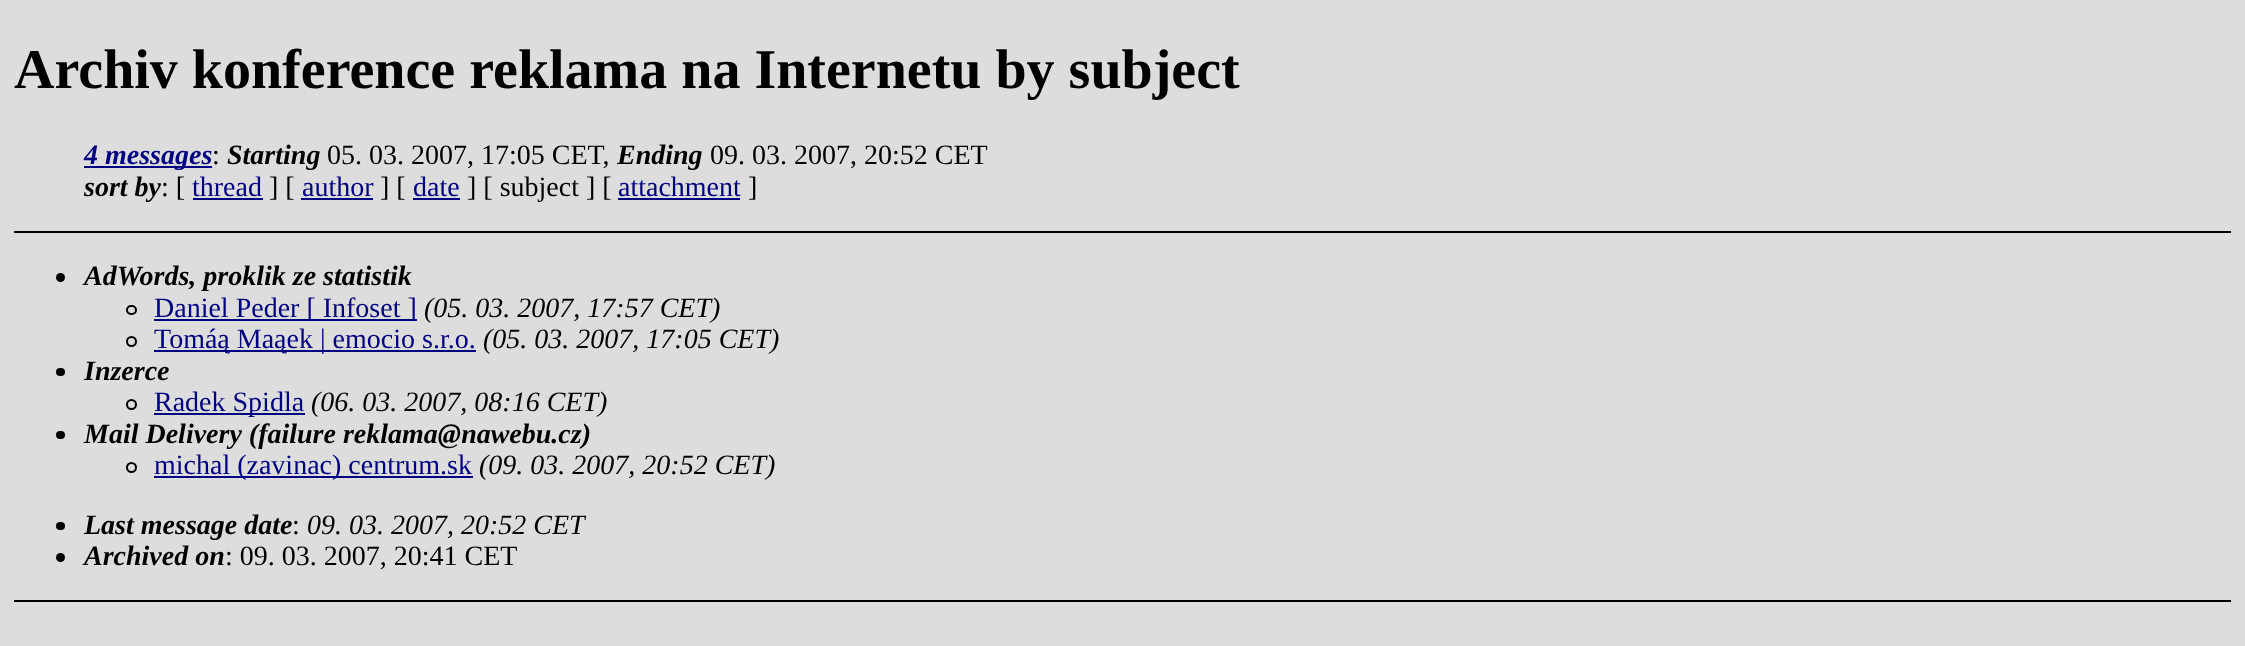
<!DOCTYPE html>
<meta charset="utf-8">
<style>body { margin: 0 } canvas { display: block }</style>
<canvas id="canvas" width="2245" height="646"></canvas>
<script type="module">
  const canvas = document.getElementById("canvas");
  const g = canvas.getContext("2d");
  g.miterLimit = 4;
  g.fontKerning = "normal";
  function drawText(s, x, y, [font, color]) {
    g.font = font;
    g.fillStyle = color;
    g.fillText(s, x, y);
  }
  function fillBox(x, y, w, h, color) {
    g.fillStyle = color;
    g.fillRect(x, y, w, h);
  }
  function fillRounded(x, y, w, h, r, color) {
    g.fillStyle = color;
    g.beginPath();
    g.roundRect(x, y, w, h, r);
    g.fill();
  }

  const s1 = ["bold 56px Liberation Serif", "#000000"];
  const s2 = ["italic bold 28px Liberation Serif", "#000080"];
  const s3 = ["28px Liberation Serif", "#000000"];
  const s4 = ["italic bold 28px Liberation Serif", "#000000"];
  const s5 = ["28px Liberation Serif", "#000080"];
  const s6 = ["italic 28px Liberation Serif", "#000000"];

  fillBox(0, 0, 2245, 646, "#DDDDDD");
  fillBox(14, 231, 2217, 2, "#000000");
  drawText("Archiv konference reklama na Internetu by subject", 14, 88, s1);
  fillBox(84, 166, 128, 2, "#000080");
  drawText("4 messages", 84, 164, s2);
  drawText(":", 212, 164, s3);
  drawText("Starting", 227, 164, s4);
  drawText("05. 03. 2007, 17:05 CET,", 327, 164, s3);
  drawText("Ending", 617, 164, s4);
  drawText("09. 03. 2007, 20:52 CET", 710, 164, s3);
  drawText("sort by", 84, 196, s4);
  drawText(": [", 161, 196, s3);
  drawText("thread", 192, 196, s5);
  fillBox(193, 198, 70, 2, "#000080");
  drawText("] [", 269, 196, s3);
  drawText("author", 302, 196, s5);
  fillBox(301, 198, 72, 2, "#000080");
  drawText("] [", 380, 196, s3);
  drawText("date", 413, 196, s5);
  fillBox(413, 198, 47, 2, "#000080");
  drawText("] [ subject ] [", 467, 196, s3);
  drawText("attachment", 618, 196, s5);
  fillBox(618, 198, 122, 2, "#000080");
  drawText("]", 748, 196, s3);
  g.beginPath();
  g.arc(60.5, 277.5, 4.5, 0, Math.PI * 2);
  g.fill();
  drawText("AdWords, proklik ze statistik", 84, 285, s4);
  g.beginPath();
  g.roundRect(127, 306, 9, 8, 4);
  g.strokeStyle = "#000000";
  g.lineWidth = 2;
  g.stroke();
  fillBox(154, 319, 263, 2, "#000080");
  drawText("Daniel Peder [ Infoset ]", 154, 317, s5);
  drawText("(05. 03. 2007, 17:57 CET)", 424, 317, s6);
  g.beginPath();
  g.arc(131.5, 341.5, 4.5, 0, Math.PI * 2);
  g.stroke();
  fillBox(154, 350, 322, 2, "#000080");
  drawText("Tomáą Maąek | emocio s.r.o.", 154, 348, s5);
  drawText("(05. 03. 2007, 17:05 CET)", 483, 348, s6);
  fillRounded(56, 368, 9, 8, 4, "#000000");
  drawText("Inzerce", 84, 380, s4);
  g.beginPath();
  g.arc(131.5, 404.5, 4.5, 0, Math.PI * 2);
  g.stroke();
  fillBox(154, 413, 151, 2, "#000080");
  drawText("Radek Spidla", 154, 411, s5);
  drawText("(06. 03. 2007, 08:16 CET)", 311, 411, s6);
  fillRounded(56, 431, 9, 8, 4, "#000000");
  drawText("Mail Delivery (failure reklama@nawebu.cz)", 84, 443, s4);
  g.beginPath();
  g.arc(131.5, 467.5, 4.5, 0, Math.PI * 2);
  g.stroke();
  fillBox(154, 476, 319, 2, "#000080");
  drawText("michal (zavinac) centrum.sk", 154, 474, s5);
  drawText("(09. 03. 2007, 20:52 CET)", 479, 474, s6);
  fillRounded(56, 522, 9, 8, 4, "#000000");
  drawText("Last message date", 84, 534, s4);
  drawText(":", 292, 534, s3);
  drawText("09. 03. 2007, 20:52 CET", 307, 534, s6);
  g.beginPath();
  g.arc(60.5, 557.5, 4.5, 0, Math.PI * 2);
  g.fill();
  drawText("Archived on", 84, 565, s4);
  drawText(": 09. 03. 2007, 20:41 CET", 225, 565, s3);
  fillBox(14, 600, 2217, 2, "#000000");
</script>
